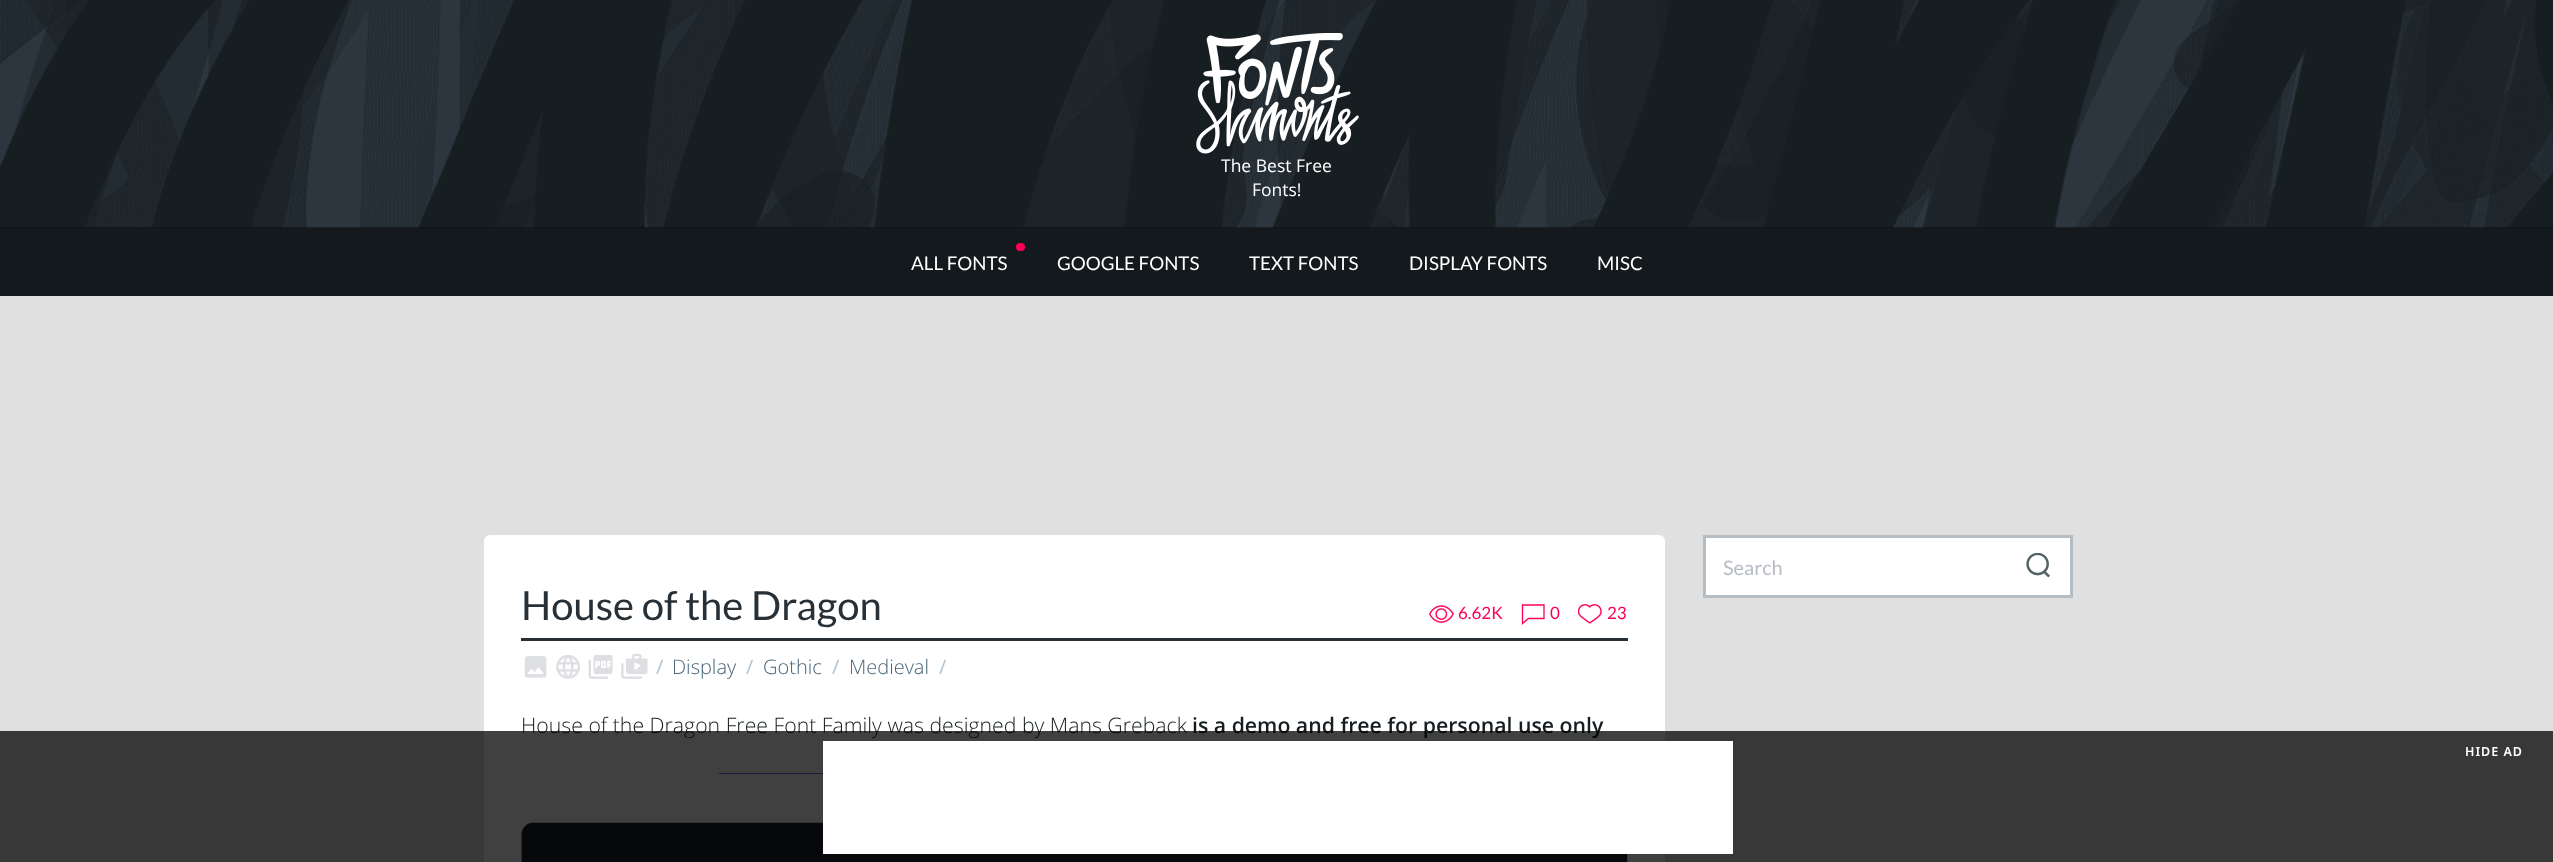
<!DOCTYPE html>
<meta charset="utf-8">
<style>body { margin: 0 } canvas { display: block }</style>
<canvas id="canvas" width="2553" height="862"></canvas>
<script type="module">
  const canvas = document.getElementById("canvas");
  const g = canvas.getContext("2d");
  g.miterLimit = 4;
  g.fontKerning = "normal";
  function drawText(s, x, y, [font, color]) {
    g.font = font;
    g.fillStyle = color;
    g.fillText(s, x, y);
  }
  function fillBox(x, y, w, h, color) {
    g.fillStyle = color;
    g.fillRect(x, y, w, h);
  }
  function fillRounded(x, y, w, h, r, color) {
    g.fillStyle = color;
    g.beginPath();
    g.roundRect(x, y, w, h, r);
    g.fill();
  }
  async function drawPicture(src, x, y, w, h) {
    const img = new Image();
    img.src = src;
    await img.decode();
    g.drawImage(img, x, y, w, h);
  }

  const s1 = ["17.5px Open Sans", "#FFFFFF"];
  const s2 = ["18.75px Lato", "#FFFFFF"];
  const s3 = ["20px Lato", "#B8BCC5"];
  const s4 = ["40px Lato", "#273037"];
  const s5 = ["17px Lato", "#FF0054"];
  const s6 = ["20px Open Sans", "#B1C5D1"];
  const s7 = ["300 20px Open Sans", "#476577"];
  const s8 = ["300 21.25px Open Sans", "#171E21"];
  const s9 = ["600 21.25px Open Sans", "#171E21"];
  const s10 = ["600 12.5px Noto Sans", "#FFFFFF"];

  fillBox(0, 0, 2553, 862, "#E0E0E0");
  fillBox(0, 227, 2553, 1, "#08090C");
  await drawPicture("pic1.png", 0, 0, 2553, 228);
  await drawPicture("pic2.png", 1196, 33, 163, 121);
  drawText("The Best Free", 1221, 172, s1);
  drawText("Fonts!", 1252, 196, s1);
  fillBox(0, 228, 2553, 68, "#13191D");
  fillRounded(1016, 243, 9, 8, 4, "#FF0054");
  drawText("ALL FONTS", 911, 270, s2);
  drawText("GOOGLE FONTS", 1057, 270, s2);
  drawText("TEXT FONTS", 1249, 270, s2);
  drawText("DISPLAY FONTS", 1409, 270, s2);
  drawText("MISC", 1597, 270, s2);
  g.beginPath();
  g.rect(1704.5, 536.5, 367, 60);
  g.fill();
  g.strokeStyle = "#B5BDC2";
  g.lineWidth = 3;
  g.stroke();
  drawText("Search", 1723, 575, s3);
  await drawPicture("pic3.png", 2026, 553, 24, 25);
  fillRounded(484, 535, 1181, 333, 6, "#FFFFFF");
  drawText("House of the Dragon", 521, 620, s4);
  await drawPicture("pic4.png", 1429, 605, 25, 18);
  drawText("6.62K", 1458, 619, s5);
  g.beginPath();
  g.moveTo(1544, 605);
  g.lineTo(1522.5, 605);
  g.lineTo(1522.5, 623.5);
  g.lineTo(1528.5, 618.5);
  g.lineTo(1544, 618.5);
  g.closePath();
  g.strokeStyle = "#FF0054";
  g.lineWidth = 1.3;
  g.stroke();
  drawText("0", 1550, 619, s5);
  await drawPicture("pic5.png", 1578, 604, 24, 20);
  drawText("23", 1607, 619, s5);
  fillBox(521, 638, 1107, 3, "#273037");
  await drawPicture("pic6.png", 524, 656, 23, 22);
  await drawPicture("pic7.png", 556, 655, 24, 24);
  await drawPicture("pic8.png", 588, 655, 25, 24);
  await drawPicture("pic9.png", 621, 653, 27, 26);
  drawText("/", 656, 674, s6);
  drawText("Display", 672, 674, s7);
  drawText("/", 746, 674, s6);
  drawText("Gothic", 763, 674, s7);
  drawText("/", 832, 674, s6);
  drawText("Medieval", 849, 674, s7);
  drawText("/", 939, 674, s6);
  drawText("House of the Dragon Free Font Family was designed by Mans Greback", 521, 733, s8);
  drawText("is a demo and free for personal use only", 1192, 733, s9);
  fillBox(719, 773, 104, 1, "#6C6CEF");
  await drawPicture("pic10.png", 521, 822, 1107, 40);
  fillBox(0, 731, 2553, 131, "rgba(0, 0, 0, 0.75)");
  fillBox(823, 741, 910, 113, "#FFFFFF");
  g.letterSpacing = "1px";
  drawText("HIDE AD", 2465, 756, s10);
</script>
